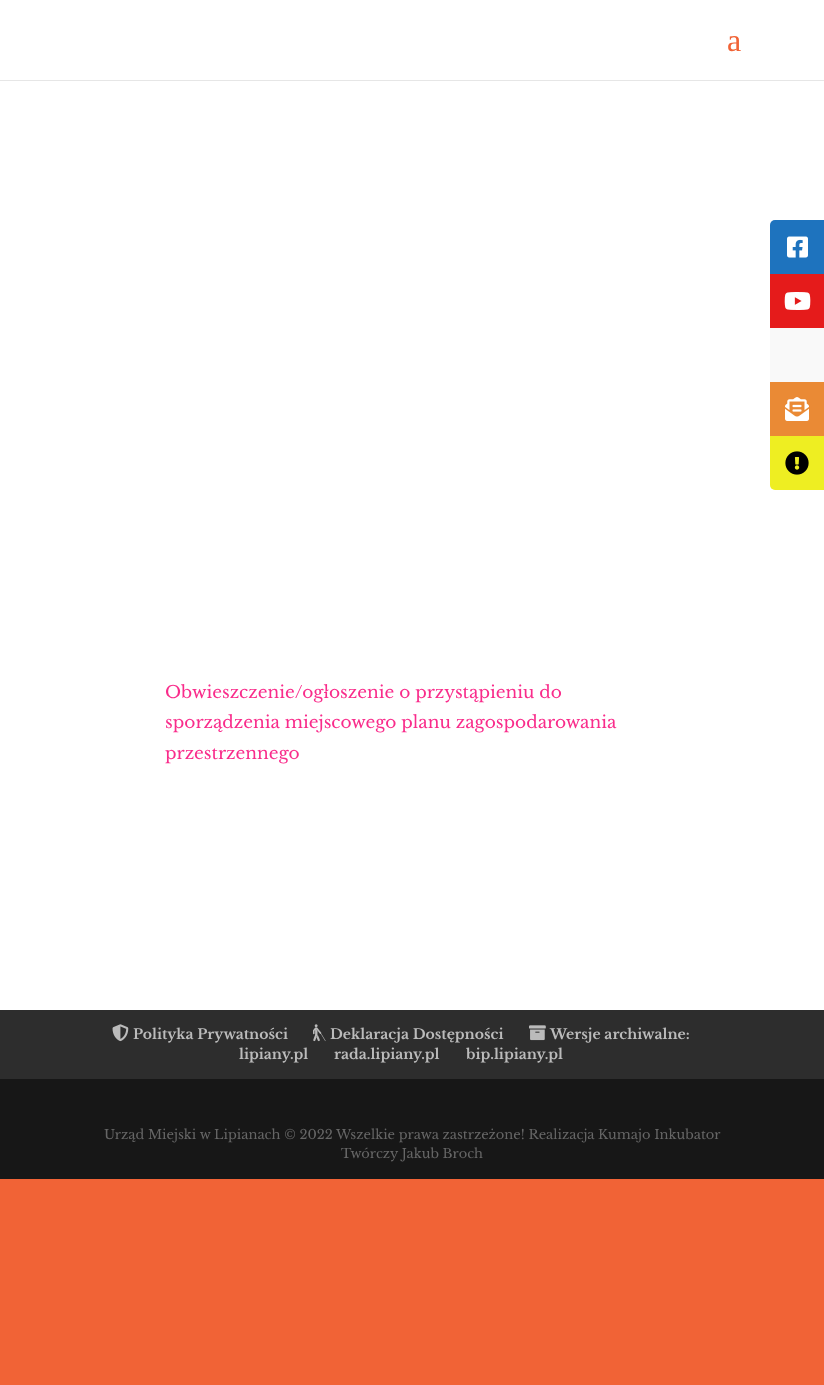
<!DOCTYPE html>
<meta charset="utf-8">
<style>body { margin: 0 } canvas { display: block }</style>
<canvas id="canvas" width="824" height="1385"></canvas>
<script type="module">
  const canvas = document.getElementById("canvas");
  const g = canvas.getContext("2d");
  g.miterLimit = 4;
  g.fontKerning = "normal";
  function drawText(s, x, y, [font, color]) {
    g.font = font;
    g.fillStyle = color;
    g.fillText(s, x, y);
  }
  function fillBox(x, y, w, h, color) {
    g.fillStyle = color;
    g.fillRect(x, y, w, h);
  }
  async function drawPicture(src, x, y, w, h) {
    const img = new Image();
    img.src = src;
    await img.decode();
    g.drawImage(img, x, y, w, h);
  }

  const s1 = ["32px Liberation Serif", "#F16336"];
  const s2 = ["17px Libre Baskerville", "#F92C8B"];
  const s3 = ["bold 14px Libre Baskerville", "#BBBBBB"];
  const s4 = ["13px Libre Baskerville", "#666666"];

  fillBox(0, 0, 824, 1385, "#F16336");
  fillBox(0, 80, 824, 1, "#E6E6E6");
  fillBox(0, 0, 824, 80, "#FFFFFF");
  drawText("a", 727, 51, s1);
  fillBox(0, 81, 824, 929, "#FFFFFF");
  drawText("Obwieszczenie/ogłoszenie o przystąpieniu do", 165, 698, s2);
  drawText("sporządzenia miejscowego planu zagospodarowania", 165, 728, s2);
  drawText("przestrzennego", 165, 759, s2);
  fillBox(0, 1010, 824, 69, "#2D2D2D");
  await drawPicture("pic1.png", 112, 1024, 17, 18);
  drawText("Polityka Prywatności", 133, 1039, s3);
  await drawPicture("pic2.png", 313, 1024, 13, 18);
  drawText("Deklaracja Dostępności", 330, 1039, s3);
  await drawPicture("pic3.png", 529, 1025, 17, 16);
  drawText("Wersje archiwalne:", 550, 1039, s3);
  drawText("lipiany.pl", 239, 1059, s3);
  drawText("rada.lipiany.pl", 334, 1059, s3);
  drawText("bip.lipiany.pl", 466, 1059, s3);
  fillBox(0, 1079, 824, 100, "#171717");
  drawText("Urząd Miejski w Lipianach © 2022 Wszelkie prawa zastrzeżone! Realizacja Kumajo Inkubator", 104, 1139, s4);
  drawText("Twórczy Jakub Broch", 341, 1158, s4);
  g.fillStyle = "#1E73BE";
  g.beginPath();
  g.roundRect(770, 220, 54, 54, [5, 0, 0, 0]);
  g.fill();
  await drawPicture("pic4.png", 787, 236, 21, 22);
  fillBox(770, 274, 54, 54, "#E51B1B");
  await drawPicture("pic5.png", 784, 292, 27, 18);
  fillBox(770, 328, 54, 54, "#F9F9F9");
  fillBox(770, 382, 54, 54, "#EA8A35");
  await drawPicture("pic6.png", 785, 397, 24, 24);
  g.fillStyle = "#EEEE22";
  g.beginPath();
  g.roundRect(770, 436, 54, 54, [0, 0, 0, 5]);
  g.fill();
  await drawPicture("pic7.png", 785, 451, 24, 24);
</script>
